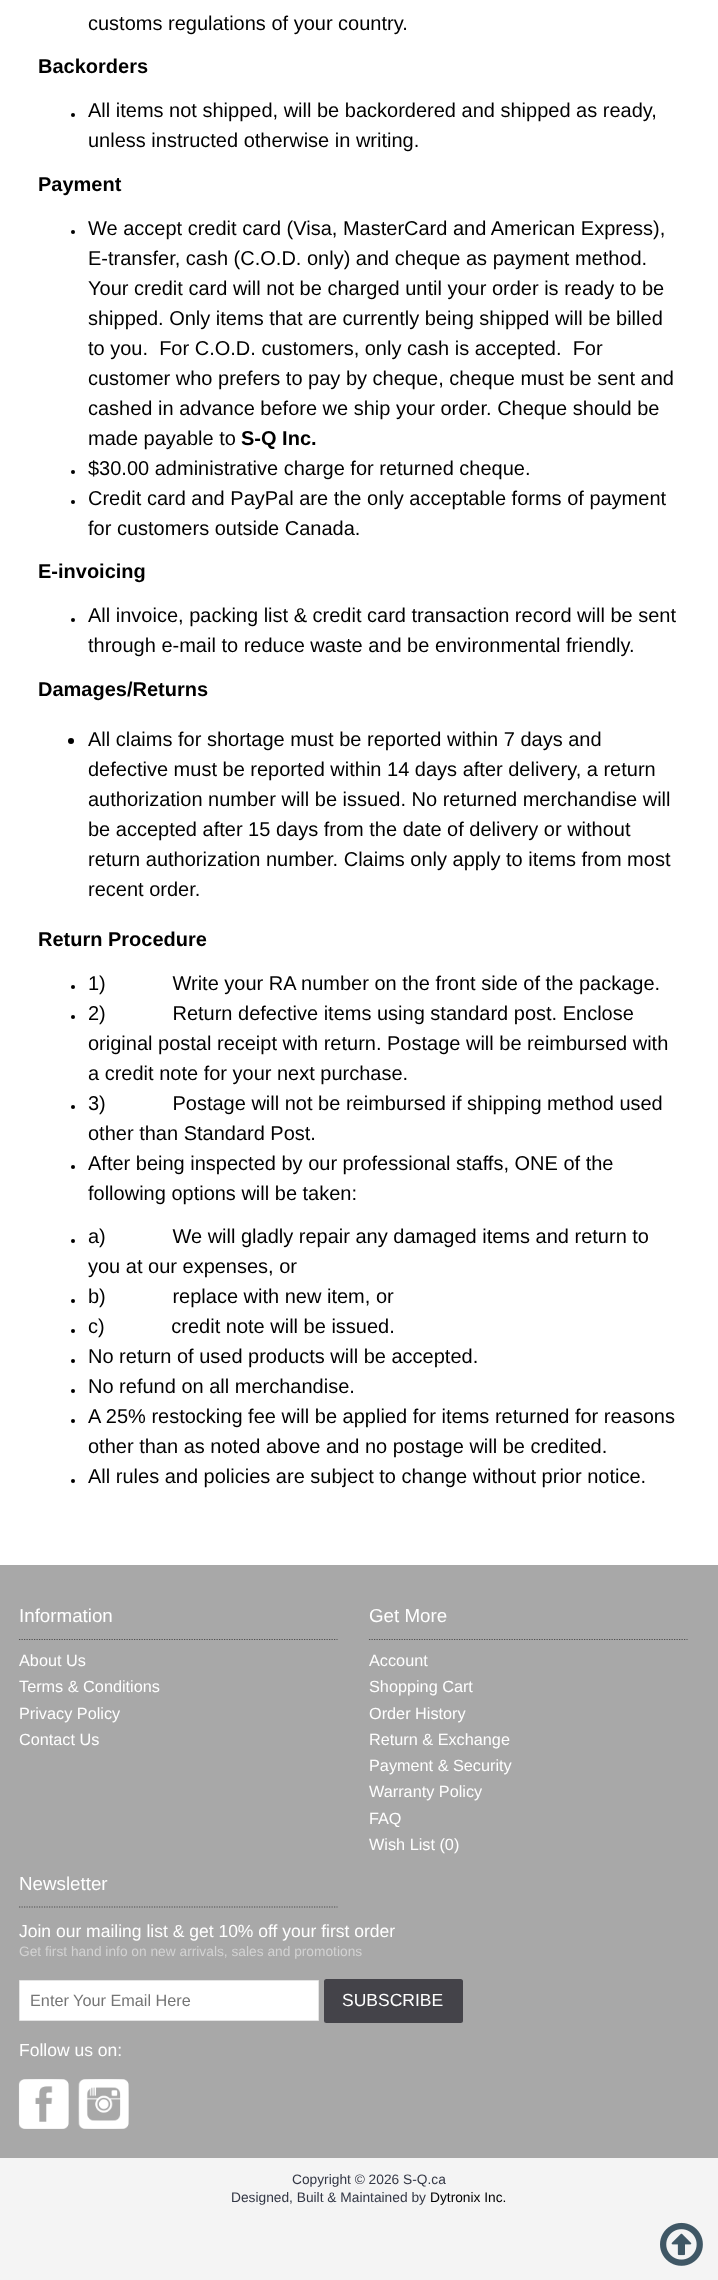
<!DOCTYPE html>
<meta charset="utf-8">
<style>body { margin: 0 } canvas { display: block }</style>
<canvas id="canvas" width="718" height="2280"></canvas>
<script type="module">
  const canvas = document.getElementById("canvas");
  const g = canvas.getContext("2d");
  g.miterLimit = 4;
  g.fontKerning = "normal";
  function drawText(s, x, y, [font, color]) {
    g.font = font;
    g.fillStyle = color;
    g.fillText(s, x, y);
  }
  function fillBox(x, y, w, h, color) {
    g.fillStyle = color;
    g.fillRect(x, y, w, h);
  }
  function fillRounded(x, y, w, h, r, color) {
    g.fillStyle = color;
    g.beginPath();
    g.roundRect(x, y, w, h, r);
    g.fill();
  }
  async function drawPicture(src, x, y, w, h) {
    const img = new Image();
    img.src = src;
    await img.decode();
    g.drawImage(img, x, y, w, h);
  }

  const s1 = ["20px Liberation Sans", "#000000"];
  const s2 = ["bold 20px Liberation Sans", "#000000"];
  const s3 = ["18.75px Liberation Sans", "#FFFFFF"];
  const s4 = ["16.25px Liberation Sans", "#FFFFFF"];
  const s5 = ["17.5px Liberation Sans", "#FFFFFF"];
  const s6 = ["13.75px Liberation Sans", "#D3D3D3"];
  const s7 = ["16.25px Liberation Sans", "#757575"];
  const s8 = ["13.75px Liberation Sans", "#333745"];
  const s9 = ["13.75px Liberation Sans", "#000000"];

  fillBox(0, 0, 718, 2280, "#FFFFFF");
  drawText("customs regulations of your country.", 88, 30, s1);
  drawText("Backorders", 38, 73, s2);
  g.beginPath();
  g.arc(73, 115, 2, 0, Math.PI * 2);
  g.fill();
  drawText("All items not shipped, will be backordered and shipped as ready,", 88, 117, s1);
  drawText("unless instructed otherwise in writing.", 88, 147, s1);
  drawText("Payment", 38, 191, s2);
  g.beginPath();
  g.arc(73, 232, 2, 0, Math.PI * 2);
  g.fill();
  drawText("We accept credit card (Visa, MasterCard and American Express),", 88, 235, s1);
  drawText("E-transfer, cash (C.O.D. only) and cheque as payment method.", 88, 265, s1);
  drawText("Your credit card will not be charged until your order is ready to be", 88, 295, s1);
  drawText("shipped. Only items that are currently being shipped will be billed", 88, 325, s1);
  drawText("to you.  For C.O.D. customers, only cash is accepted.  For", 88, 355, s1);
  drawText("customer who prefers to pay by cheque, cheque must be sent and", 88, 385, s1);
  drawText("cashed in advance before we ship your order. Cheque should be", 88, 415, s1);
  drawText("made payable to", 88, 445, s1);
  drawText("S-Q Inc.", 241, 445, s2);
  g.beginPath();
  g.arc(73, 472, 2, 0, Math.PI * 2);
  g.fill();
  drawText("$30.00 administrative charge for returned cheque.", 88, 475, s1);
  g.beginPath();
  g.arc(73, 502, 2, 0, Math.PI * 2);
  g.fill();
  drawText("Credit card and PayPal are the only acceptable forms of payment", 88, 505, s1);
  drawText("for customers outside Canada.", 88, 535, s1);
  drawText("E-invoicing", 38, 578, s2);
  g.beginPath();
  g.arc(73, 620, 2, 0, Math.PI * 2);
  g.fill();
  drawText("All invoice, packing list & credit card transaction record will be sent", 88, 622, s1);
  drawText("through e-mail to reduce waste and be environmental friendly.", 88, 652, s1);
  drawText("Damages/Returns", 38, 696, s2);
  g.beginPath();
  g.arc(71, 741, 3, 0, Math.PI * 2);
  g.fill();
  drawText("All claims for shortage must be reported within 7 days and", 88, 746, s1);
  drawText("defective must be reported within 14 days after delivery, a return", 88, 776, s1);
  drawText("authorization number will be issued. No returned merchandise will", 88, 806, s1);
  drawText("be accepted after 15 days from the date of delivery or without", 88, 836, s1);
  drawText("return authorization number. Claims only apply to items from most", 88, 866, s1);
  drawText("recent order.", 88, 896, s1);
  drawText("Return Procedure", 38, 946, s2);
  g.beginPath();
  g.arc(73, 987, 2, 0, Math.PI * 2);
  g.fill();
  drawText("1)            Write your RA number on the front side of the package.", 88, 990, s1);
  g.beginPath();
  g.arc(73, 1017, 2, 0, Math.PI * 2);
  g.fill();
  drawText("2)            Return defective items using standard post. Enclose", 88, 1020, s1);
  drawText("original postal receipt with return. Postage will be reimbursed with", 88, 1050, s1);
  drawText("a credit note for your next purchase.", 88, 1080, s1);
  g.beginPath();
  g.arc(73, 1107, 2, 0, Math.PI * 2);
  g.fill();
  drawText("3)            Postage will not be reimbursed if shipping method used", 88, 1110, s1);
  drawText("other than Standard Post.", 88, 1140, s1);
  g.beginPath();
  g.arc(73, 1167, 2, 0, Math.PI * 2);
  g.fill();
  drawText("After being inspected by our professional staffs, ONE of the", 88, 1170, s1);
  drawText("following options will be taken:", 88, 1200, s1);
  g.beginPath();
  g.arc(73, 1241, 2, 0, Math.PI * 2);
  g.fill();
  drawText("a)            We will gladly repair any damaged items and return to", 88, 1243, s1);
  drawText("you at our expenses, or", 88, 1273, s1);
  g.beginPath();
  g.arc(73, 1301, 2, 0, Math.PI * 2);
  g.fill();
  drawText("b)            replace with new item, or", 88, 1303, s1);
  g.beginPath();
  g.arc(73, 1331, 2, 0, Math.PI * 2);
  g.fill();
  drawText("c)            credit note will be issued.", 88, 1333, s1);
  g.beginPath();
  g.arc(73, 1361, 2, 0, Math.PI * 2);
  g.fill();
  drawText("No return of used products will be accepted.", 88, 1363, s1);
  g.beginPath();
  g.arc(73, 1391, 2, 0, Math.PI * 2);
  g.fill();
  drawText("No refund on all merchandise.", 88, 1393, s1);
  g.beginPath();
  g.arc(73, 1421, 2, 0, Math.PI * 2);
  g.fill();
  drawText("A 25% restocking fee will be applied for items returned for reasons", 88, 1423, s1);
  drawText("other than as noted above and no postage will be credited.", 88, 1453, s1);
  g.beginPath();
  g.arc(73, 1481, 2, 0, Math.PI * 2);
  g.fill();
  drawText("All rules and policies are subject to change without prior notice.", 88, 1483, s1);
  fillBox(0, 1565, 718, 593, "#A8A8A8");
  g.beginPath();
  g.moveTo(19, 1639.5);
  g.lineTo(337.5, 1639.5);
  g.strokeStyle = "#505050";
  g.lineWidth = 1.2;
  g.setLineDash([1.25, 1.25]);
  g.stroke();
  drawText("Information", 19, 1622, s3);
  drawText("About Us", 19, 1666, s4);
  drawText("Terms & Conditions", 19, 1692, s4);
  drawText("Privacy Policy", 19, 1719, s4);
  drawText("Contact Us", 19, 1745, s4);
  g.beginPath();
  g.moveTo(369, 1639.5);
  g.lineTo(687.5, 1639.5);
  g.stroke();
  drawText("Get More", 369, 1622, s3);
  drawText("Account", 369, 1666, s4);
  drawText("Shopping Cart", 369, 1692, s4);
  drawText("Order History", 369, 1719, s4);
  drawText("Return & Exchange", 369, 1745, s4);
  drawText("Payment & Security", 369, 1771, s4);
  drawText("Warranty Policy", 369, 1797, s4);
  drawText("FAQ", 369, 1824, s4);
  drawText("Wish List (0)", 369, 1850, s4);
  g.beginPath();
  g.moveTo(19, 1907);
  g.lineTo(337.5, 1907);
  g.stroke();
  drawText("Newsletter", 19, 1890, s3);
  drawText("Join our mailing list & get 10% off your first order", 19, 1937, s5);
  drawText("Get first hand info on new arrivals, sales and promotions", 19, 1956, s6);
  g.fillStyle = "#FFFFFF";
  g.beginPath();
  g.rect(19.5, 1980.5, 299, 40);
  g.fill();
  g.strokeStyle = "#E4E4E4";
  g.lineWidth = 1;
  g.setLineDash([]);
  g.stroke();
  drawText("Enter Your Email Here", 30, 2006, s7);
  fillRounded(324, 1979, 139, 44, 2.5, "#444349");
  drawText("SUBSCRIBE", 342, 2006, s5);
  drawText("Follow us on:", 19, 2056, s5);
  await drawPicture("pic1.png", 18, 2079, 51, 50);
  await drawPicture("pic2.png", 78, 2079, 51, 50);
  fillBox(0, 2158, 718, 122, "#F4F4F4");
  drawText("Copyright © 2026 S-Q.ca", 292, 2184, s8);
  drawText("Designed, Built & Maintained by", 231, 2202, s8);
  drawText("Dytronix Inc.", 430, 2202, s9);
  await drawPicture("pic3.png", 660, 2222, 43, 44);
</script>
